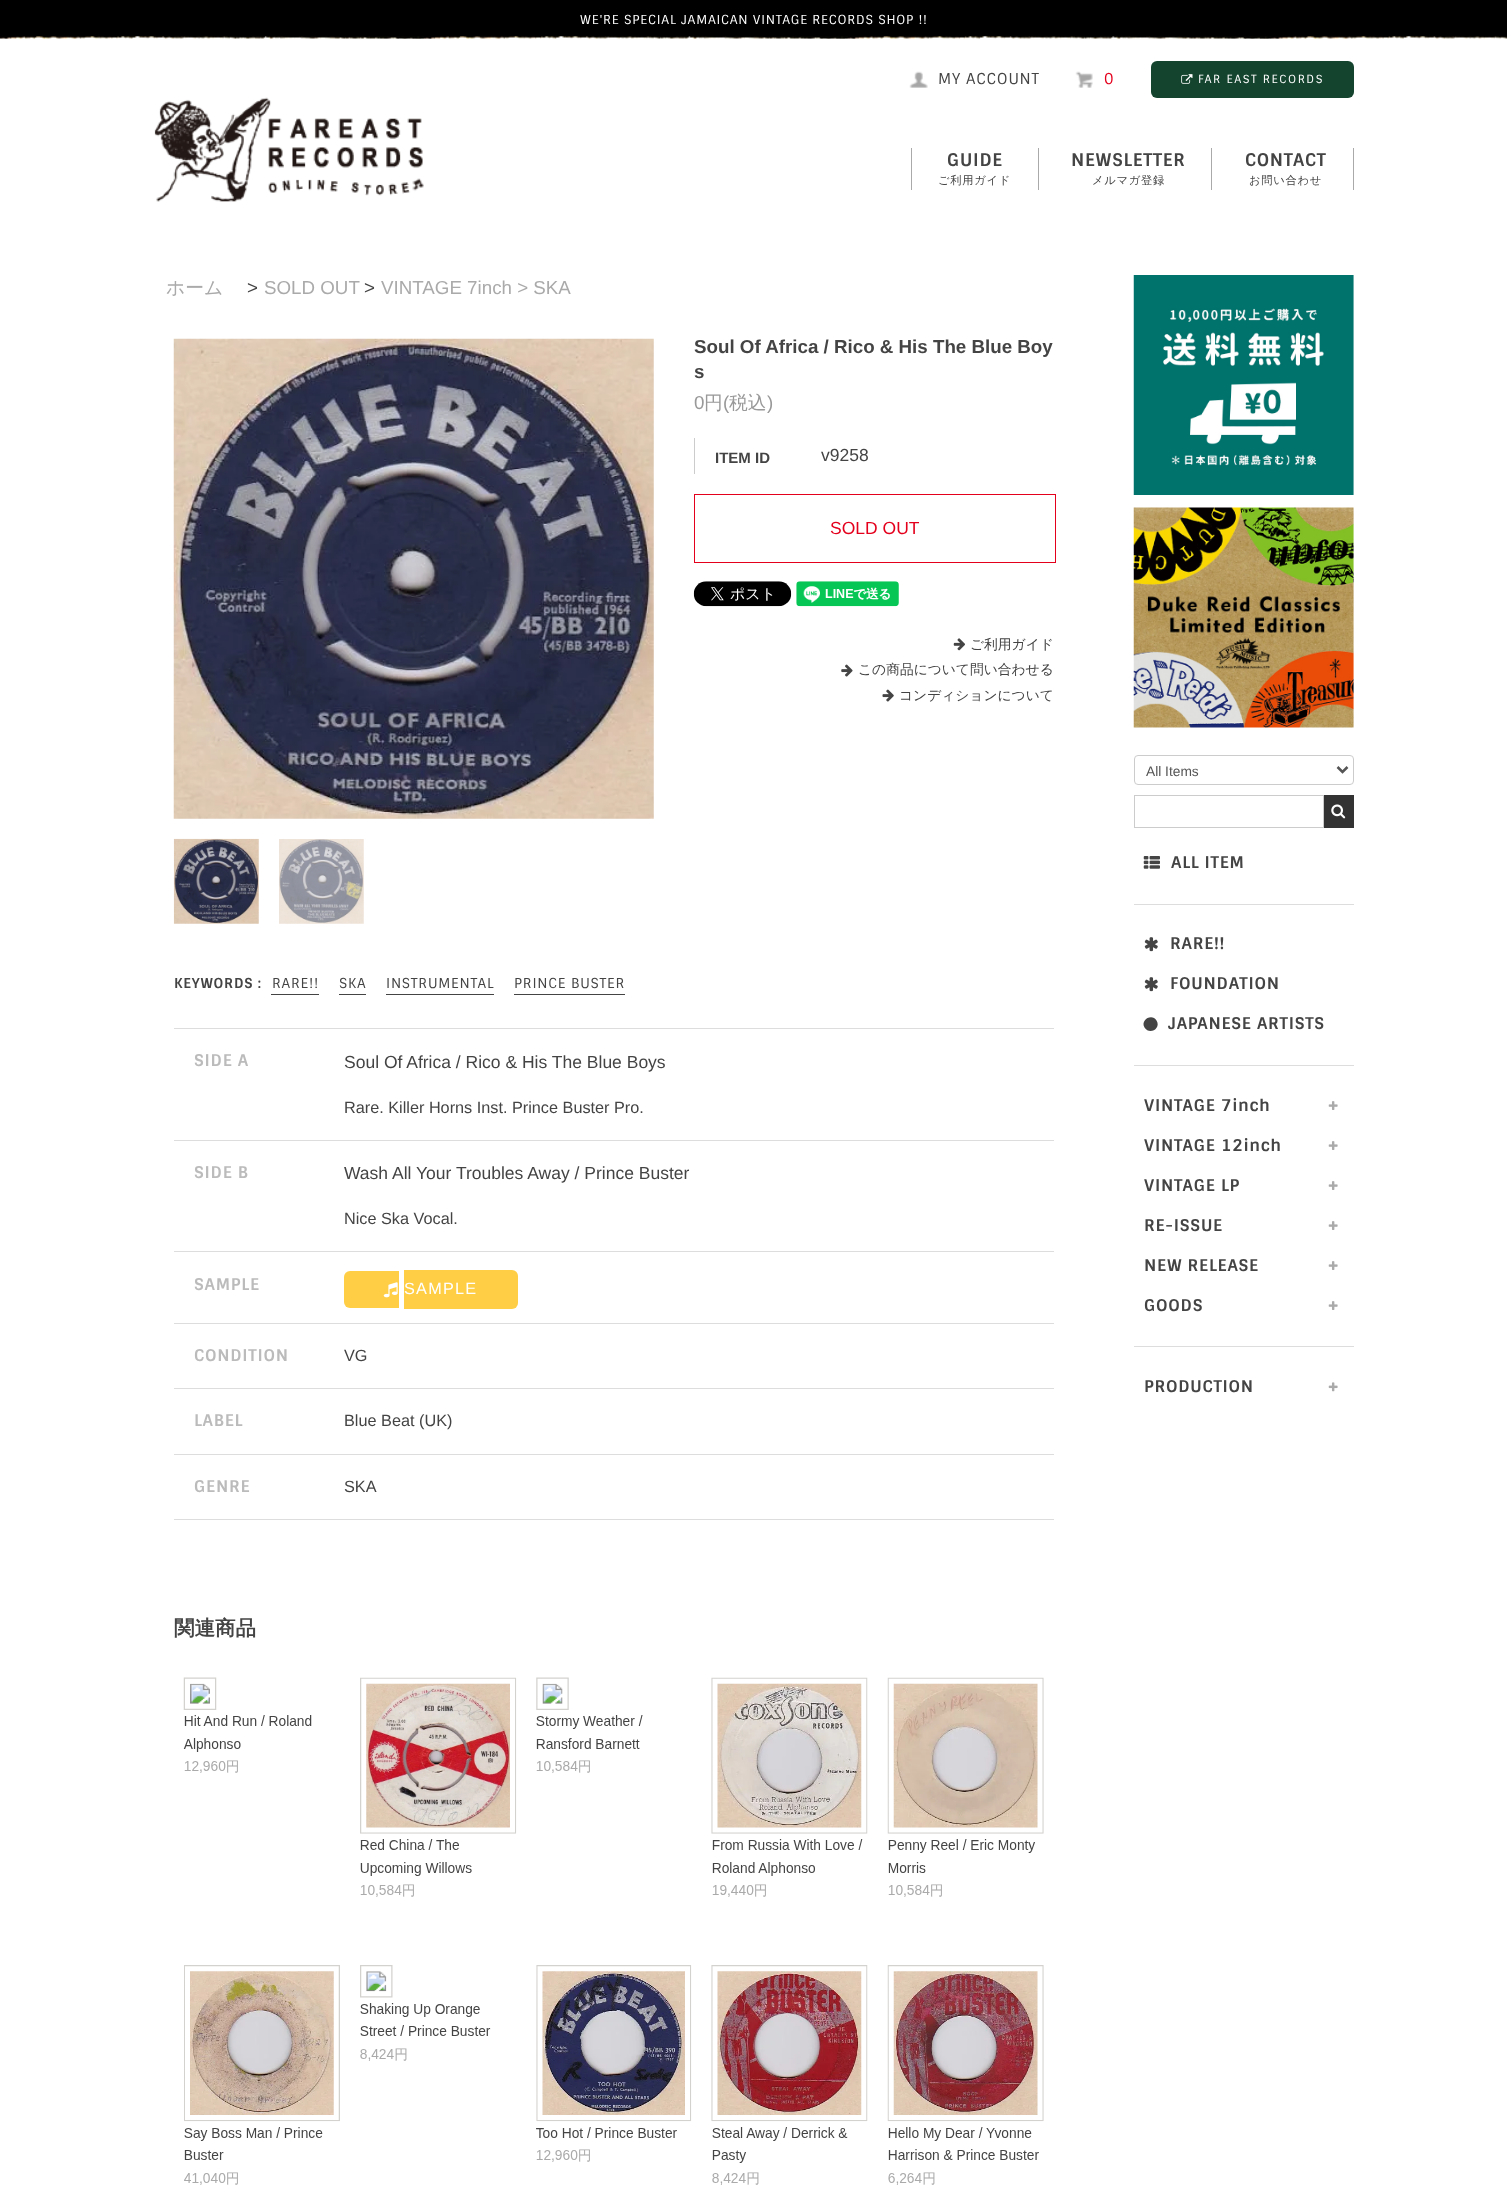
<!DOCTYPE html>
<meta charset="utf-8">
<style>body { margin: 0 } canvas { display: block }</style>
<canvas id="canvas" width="1507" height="2195"></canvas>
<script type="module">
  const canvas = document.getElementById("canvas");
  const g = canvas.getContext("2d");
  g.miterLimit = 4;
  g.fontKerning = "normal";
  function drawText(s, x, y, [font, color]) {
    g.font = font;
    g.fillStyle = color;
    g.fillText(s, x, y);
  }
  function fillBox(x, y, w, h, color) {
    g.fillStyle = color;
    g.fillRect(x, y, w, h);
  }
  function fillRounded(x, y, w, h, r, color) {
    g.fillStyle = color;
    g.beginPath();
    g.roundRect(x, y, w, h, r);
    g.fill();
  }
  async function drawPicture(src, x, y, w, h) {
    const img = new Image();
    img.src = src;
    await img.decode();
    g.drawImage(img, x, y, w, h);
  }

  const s1 = ["12.5px Sintony", "#FFFFFF"];
  const s2 = ["15px Sintony", "#444444"];
  const s3 = ["15px Sintony", "#E4001D"];
  const s4 = ["11.25px Sintony", "#FFFFFF"];
  const s5 = ["bold 17.5px Sintony", "#444444"];
  const s6 = ["500 11.25px WenQuanYi Zen Hei", "#444444"];
  const s7 = ["500 18.75px WenQuanYi Zen Hei", "#AAAAAA"];
  const s8 = ["18.75px Liberation Sans", "#444444"];
  const s9 = ["18.75px Liberation Sans", "#AAAAAA"];
  const s10 = ["bold 18.75px Liberation Sans", "#444444"];
  const s11 = ["18.75px Liberation Sans", "#999999"];
  const s12 = ["500 18.75px WenQuanYi Zen Hei", "#999999"];
  const s13 = ["bold 15px Liberation Sans", "#444444"];
  const s14 = ["17.5px Liberation Sans", "#444444"];
  const s15 = ["17.5px Liberation Sans", "#E4001D"];
  const s16 = ["500 13.75px WenQuanYi Zen Hei", "#444444"];
  const s17 = ["bold 13.75px Sintony", "#444444"];
  const s18 = ["13.75px Sintony", "#444444"];
  const s19 = ["bold 16.25px Sintony", "#BBBBBB"];
  const s20 = ["16.25px Liberation Sans", "#444444"];
  const s21 = ["16.25px Liberation Sans", "#FFFFFF"];
  const s22 = ["bold 20.5px WenQuanYi Zen Hei", "#444444"];
  const s23 = ["13.75px Liberation Sans", "#555555"];
  const s24 = ["bold 16.25px Sintony", "#444444"];

  fillBox(0, 0, 1507, 2195, "#FFFFFF");
  await drawPicture("pic1.png", 0, 0, 1507, 39);
  g.letterSpacing = "0.75px";
  drawText("WE'RE SPECIAL JAMAICAN VINTAGE RECORDS SHOP !!", 580, 24, s1);
  await drawPicture("pic2.png", 909, 71, 19, 17);
  drawText("MY ACCOUNT", 938, 84, s2);
  await drawPicture("pic3.png", 1075, 71, 18, 17);
  drawText("0", 1104, 84, s3);
  fillRounded(1151, 61, 203, 37, 6, "#14442E");
  await drawPicture("pic4.png", 1181, 74, 12, 10);
  g.letterSpacing = "1.5px";
  drawText("FAR EAST RECORDS", 1198, 83, s4);
  await drawPicture("pic5.png", 154, 97, 270, 105);
  fillBox(1038, 148, 1, 42, "#AAAAAA");
  fillBox(911, 148, 1, 42, "#AAAAAA");
  g.letterSpacing = "0.75px";
  drawText("GUIDE", 947, 166, s5);
  drawText("ご利用ガイド", 938, 184, s6);
  fillBox(1211, 148, 1, 42, "#AAAAAA");
  drawText("NEWSLETTER", 1071, 166, s5);
  drawText("メルマガ登録", 1092, 184, s6);
  fillBox(1353, 148, 1, 42, "#AAAAAA");
  drawText("CONTACT", 1245, 166, s5);
  drawText("お問い合わせ", 1249, 184, s6);
  g.letterSpacing = "0px";
  drawText("ホーム", 166, 294, s7);
  drawText(">", 247, 294, s8);
  drawText("SOLD OUT", 264, 294, s9);
  drawText(">", 364, 294, s8);
  drawText("VINTAGE 7inch > SKA", 381, 294, s9);
  await drawPicture("pic6.png", 173, 338, 481, 481);
  await drawPicture("pic7.png", 173, 838, 86, 86);
  await drawPicture("pic8.png", 279, 839, 85, 85);
  drawText("Soul Of Africa / Rico & His The Blue Boy", 694, 353, s10);
  drawText("s", 694, 378, s10);
  drawText("0", 694, 409, s11);
  drawText("円", 704, 409, s12);
  drawText("(", 723, 409, s11);
  drawText("税込", 729, 409, s12);
  drawText(")", 767, 409, s11);
  fillBox(694, 438, 1, 36, "#CCCCCC");
  drawText("ITEM ID", 715, 463, s13);
  drawText("v9258", 821, 461, s14);
  g.strokeStyle = "#E4001D";
  g.strokeRect(694.5, 494.5, 361, 68);
  drawText("SOLD OUT", 830, 534, s15);
  await drawPicture("pic9.png", 693, 581, 99, 26);
  await drawPicture("pic10.png", 796, 581, 103, 26);
  await drawPicture("pic11.png", 953, 638, 12, 13);
  drawText("ご利用ガイド", 970, 649, s16);
  await drawPicture("pic12.png", 841, 664, 12, 13);
  drawText("この商品について問い合わせる", 858, 674, s16);
  await drawPicture("pic13.png", 882, 689, 12, 13);
  drawText("コンディションについて", 899, 700, s16);
  g.letterSpacing = "0.75px";
  drawText("KEYWORDS :", 174, 988, s17);
  fillBox(271, 994, 48, 1, "#444444");
  drawText("RARE!!", 272, 988, s18);
  fillBox(339, 994, 27, 1, "#444444");
  drawText("SKA", 339, 988, s18);
  fillBox(386, 994, 108, 1, "#444444");
  drawText("INSTRUMENTAL", 386, 988, s18);
  fillBox(514, 994, 111, 1, "#444444");
  drawText("PRINCE BUSTER", 514, 988, s18);
  fillBox(174, 1028, 880, 1, "#DDDDDD");
  fillBox(174, 1140, 880, 1, "#DDDDDD");
  drawText("SIDE A", 194, 1066, s19);
  g.letterSpacing = "0px";
  drawText("Soul Of Africa / Rico & His The Blue Boys", 344, 1068, s14);
  drawText("Rare. Killer Horns Inst. Prince Buster Pro.", 344, 1113, s20);
  fillBox(174, 1251, 880, 1, "#DDDDDD");
  g.letterSpacing = "0.75px";
  drawText("SIDE B", 194, 1178, s19);
  g.letterSpacing = "0px";
  drawText("Wash All Your Troubles Away / Prince Buster", 344, 1179, s14);
  drawText("Nice Ska Vocal.", 344, 1224, s20);
  fillBox(174, 1323, 880, 1, "#DDDDDD");
  g.letterSpacing = "0.75px";
  drawText("SAMPLE", 194, 1290, s19);
  g.fillStyle = "#FFCE45";
  g.beginPath();
  g.roundRect(344, 1271, 55, 37, [6, 0, 0, 6]);
  g.fill();
  g.beginPath();
  g.roundRect(404, 1270, 114, 39, [0, 6, 6, 0]);
  g.fill();
  await drawPicture("pic14.png", 383, 1282, 15, 16);
  g.letterSpacing = "1.25px";
  drawText("SAMPLE", 404, 1294, s21);
  fillBox(174, 1388, 880, 1, "#DDDDDD");
  g.letterSpacing = "0.75px";
  drawText("CONDITION", 194, 1361, s19);
  g.letterSpacing = "0px";
  drawText("VG", 344, 1361, s20);
  fillBox(174, 1454, 880, 1, "#DDDDDD");
  g.letterSpacing = "0.75px";
  drawText("LABEL", 194, 1426, s19);
  g.letterSpacing = "0px";
  drawText("Blue Beat (UK)", 344, 1426, s20);
  fillBox(174, 1519, 880, 1, "#DDDDDD");
  g.letterSpacing = "0.75px";
  drawText("GENRE", 194, 1492, s19);
  g.letterSpacing = "0px";
  drawText("SKA", 344, 1492, s20);
  drawText("関連商品", 174, 1635, s22);
  await drawPicture("pic15.png", 183, 1677, 861, 220);
  await drawPicture("pic16.png", 184, 1965, 860, 220);
  await drawPicture("pic17.png", 1133, 275, 221, 220);
  await drawPicture("pic18.png", 1133, 507, 221, 221);
  g.beginPath();
  g.roundRect(1134.5, 755.5, 219, 29, 3.5);
  g.strokeStyle = "#CCCCCC";
  g.stroke();
  g.beginPath();
  g.moveTo(1337.5, 767);
  g.lineTo(1342.5, 772);
  g.lineTo(1347.5, 767);
  g.strokeStyle = "#555555";
  g.lineWidth = 2.5;
  g.stroke();
  drawText("All Items", 1146, 776, s23);
  g.strokeStyle = "#CCCCCC";
  g.lineWidth = 1;
  g.strokeRect(1134.5, 795.5, 189, 32);
  fillBox(1324, 795, 30, 33, "#333333");
  await drawPicture("pic19.png", 1331, 804, 15, 15);
  fillBox(1134, 904, 220, 1, "#DDDDDD");
  await drawPicture("pic20.png", 1143, 856, 17, 13);
  g.letterSpacing = "0.75px";
  drawText("ALL ITEM", 1171, 868, s24);
  fillBox(1134, 1065, 220, 1, "#DDDDDD");
  await drawPicture("pic21.png", 1144, 937, 14, 15);
  drawText("RARE!!", 1170, 949, s24);
  await drawPicture("pic21.png", 1144, 977, 14, 15);
  drawText("FOUNDATION", 1170, 989, s24);
  g.beginPath();
  g.moveTo(1156.5, 1020.5);
  g.bezierCurveTo(1161.5, 1028.5, 1149.5, 1035.5, 1144.5, 1027.5);
  g.bezierCurveTo(1140, 1020, 1152, 1013, 1156.5, 1020.5);
  g.closePath();
  g.fill();
  drawText("JAPANESE ARTISTS", 1168, 1029, s24);
  fillBox(1134, 1346, 220, 1, "#DDDDDD");
  drawText("VINTAGE 7inch", 1144, 1111, s24);
  await drawPicture("pic22.png", 1328, 1101, 10, 9);
  drawText("VINTAGE 12inch", 1144, 1151, s24);
  await drawPicture("pic22.png", 1328, 1141, 10, 9);
  drawText("VINTAGE LP", 1144, 1191, s24);
  await drawPicture("pic22.png", 1328, 1181, 10, 9);
  drawText("RE-ISSUE", 1144, 1231, s24);
  await drawPicture("pic22.png", 1328, 1221, 10, 9);
  drawText("NEW RELEASE", 1144, 1271, s24);
  await drawPicture("pic22.png", 1328, 1261, 10, 9);
  drawText("GOODS", 1144, 1311, s24);
  await drawPicture("pic22.png", 1328, 1301, 10, 9);
  drawText("PRODUCTION", 1144, 1392, s24);
  await drawPicture("pic23.png", 1328, 1382, 10, 10);
</script>
